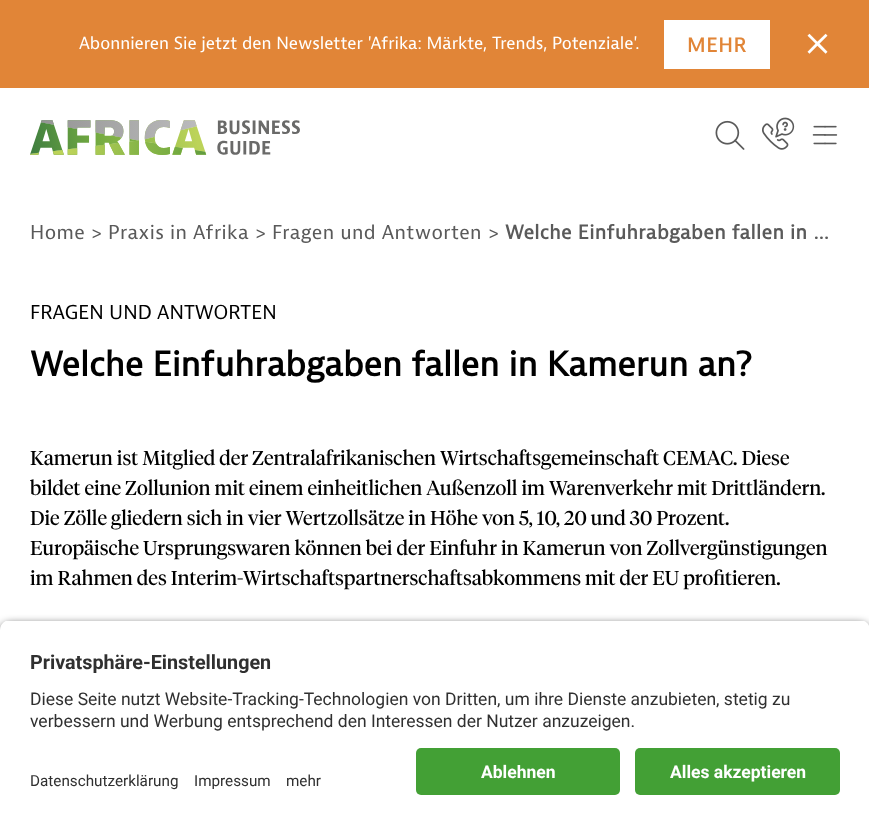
<!DOCTYPE html>
<meta charset="utf-8">
<style>body { margin: 0 } canvas { display: block }</style>
<canvas id="canvas" width="869" height="825"></canvas>
<script type="module">
  const canvas = document.getElementById("canvas");
  const g = canvas.getContext("2d");
  g.miterLimit = 4;
  g.fontKerning = "normal";
  function drawText(s, x, y, [font, color]) {
    g.font = font;
    g.fillStyle = color;
    g.fillText(s, x, y);
  }
  function fillBox(x, y, w, h, color) {
    g.fillStyle = color;
    g.fillRect(x, y, w, h);
  }
  function fillRounded(x, y, w, h, r, color) {
    g.fillStyle = color;
    g.beginPath();
    g.roundRect(x, y, w, h, r);
    g.fill();
  }
  async function drawPicture(src, x, y, w, h) {
    const img = new Image();
    img.src = src;
    await img.decode();
    g.drawImage(img, x, y, w, h);
  }

  const s1 = ["17.5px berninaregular", "#FFFFFF"];
  const s2 = ["bold 20px berninaregular", "#E18537"];
  const s3 = ["20px berninaregular", "#5A5A5A"];
  const s4 = ["bold 20px berninaregular", "#5A5A5A"];
  const s5 = ["20px berninaregular", "#000000"];
  const s6 = ["bold 35px berninaregular", "#000000"];
  const s7 = ["20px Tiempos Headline", "#000000"];
  const s8 = ["bold 19.75px Roboto", "#303030"];
  const s9 = ["17.5px Roboto", "#303030"];
  const s10 = ["15.25px Roboto", "#303030"];
  const s11 = ["bold 17.5px Roboto", "#FFFFFF"];

  fillBox(0, 0, 869, 825, "#FFFFFF");
  fillBox(0, 0, 869, 88, "#E18537");
  drawText("Abonnieren Sie jetzt den Newsletter 'Afrika: Märkte, Trends, Potenziale'.", 79, 49, s1);
  fillBox(664, 20, 106, 49, "#FFFFFF");
  g.letterSpacing = "1px";
  drawText("MEHR", 687, 52, s2);
  await drawPicture("pic1.png", 807, 33, 21, 21);
  await drawPicture("pic2.png", 30, 120, 270, 35);
  await drawPicture("pic3.png", 715, 120, 30, 30);
  await drawPicture("pic4.png", 762, 117, 33, 33);
  await drawPicture("pic5.png", 812, 125, 26, 20);
  g.letterSpacing = "0.4px";
  drawText("Home", 30, 239, s3);
  drawText(">", 90, 239, s3);
  drawText("Praxis in Afrika", 108, 239, s3);
  drawText(">", 254, 239, s3);
  drawText("Fragen und Antworten", 272, 239, s3);
  drawText(">", 487, 239, s3);
  drawText("Welche Einfuhrabgaben fallen in …", 505, 239, s4);
  g.letterSpacing = "0px";
  drawText("FRAGEN UND ANTWORTEN", 30, 319, s5);
  drawText("Welche Einfuhrabgaben fallen in Kamerun an?", 30, 376, s6);
  drawText("Kamerun ist Mitglied der Zentralafrikanischen Wirtschaftsgemeinschaft CEMAC. Diese", 30, 465, s7);
  drawText("bildet eine Zollunion mit einem einheitlichen Außenzoll im Warenverkehr mit Drittländern.", 30, 495, s7);
  drawText("Die Zölle gliedern sich in vier Wertzollsätze in Höhe von 5, 10, 20 und 30 Prozent.", 30, 525, s7);
  drawText("Europäische Ursprungswaren können bei der Einfuhr in Kamerun von Zollvergünstigungen", 30, 555, s7);
  drawText("im Rahmen des Interim-Wirtschaftspartnerschaftsabkommens mit der EU profitieren.", 30, 585, s7);
  g.fillStyle = "rgba(0, 0, 0, 0.8)";
  g.filter = "blur(4.5px)";
  g.beginPath();
  g.roundRect(0, 624, 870, 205, 10);
  g.fill();
  g.filter = "none";
  g.save();
  g.beginPath();
  g.moveTo(10, 620);
  g.lineTo(860, 620);
  g.bezierCurveTo(865.5, 620, 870, 624.5, 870, 630);
  g.lineTo(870, 738);
  g.lineTo(0, 738);
  g.lineTo(0, 630);
  g.bezierCurveTo(0, 624.5, 4.5, 620, 10, 620);
  g.closePath();
  g.clip();
  fillBox(0, 621, 869, 117, "#FFFFFF");
  g.restore();
  drawText("Privatsphäre-Einstellungen", 30, 669, s8);
  drawText("Diese Seite nutzt Website-Tracking-Technologien von Dritten, um ihre Dienste anzubieten, stetig zu", 30, 705, s9);
  drawText("verbessern und Werbung entsprechend den Interessen der Nutzer anzuzeigen.", 30, 727, s9);
  fillBox(0, 738, 869, 87, "#FFFFFF");
  drawText("Datenschutzerklärung", 30, 786, s10);
  drawText("Impressum", 194, 786, s10);
  drawText("mehr", 286, 786, s10);
  fillRounded(416, 748, 204, 47, 5, "#43A035");
  drawText("Ablehnen", 481, 778, s11);
  fillRounded(635, 748, 205, 47, 5, "#43A035");
  drawText("Alles akzeptieren", 670, 778, s11);
</script>
